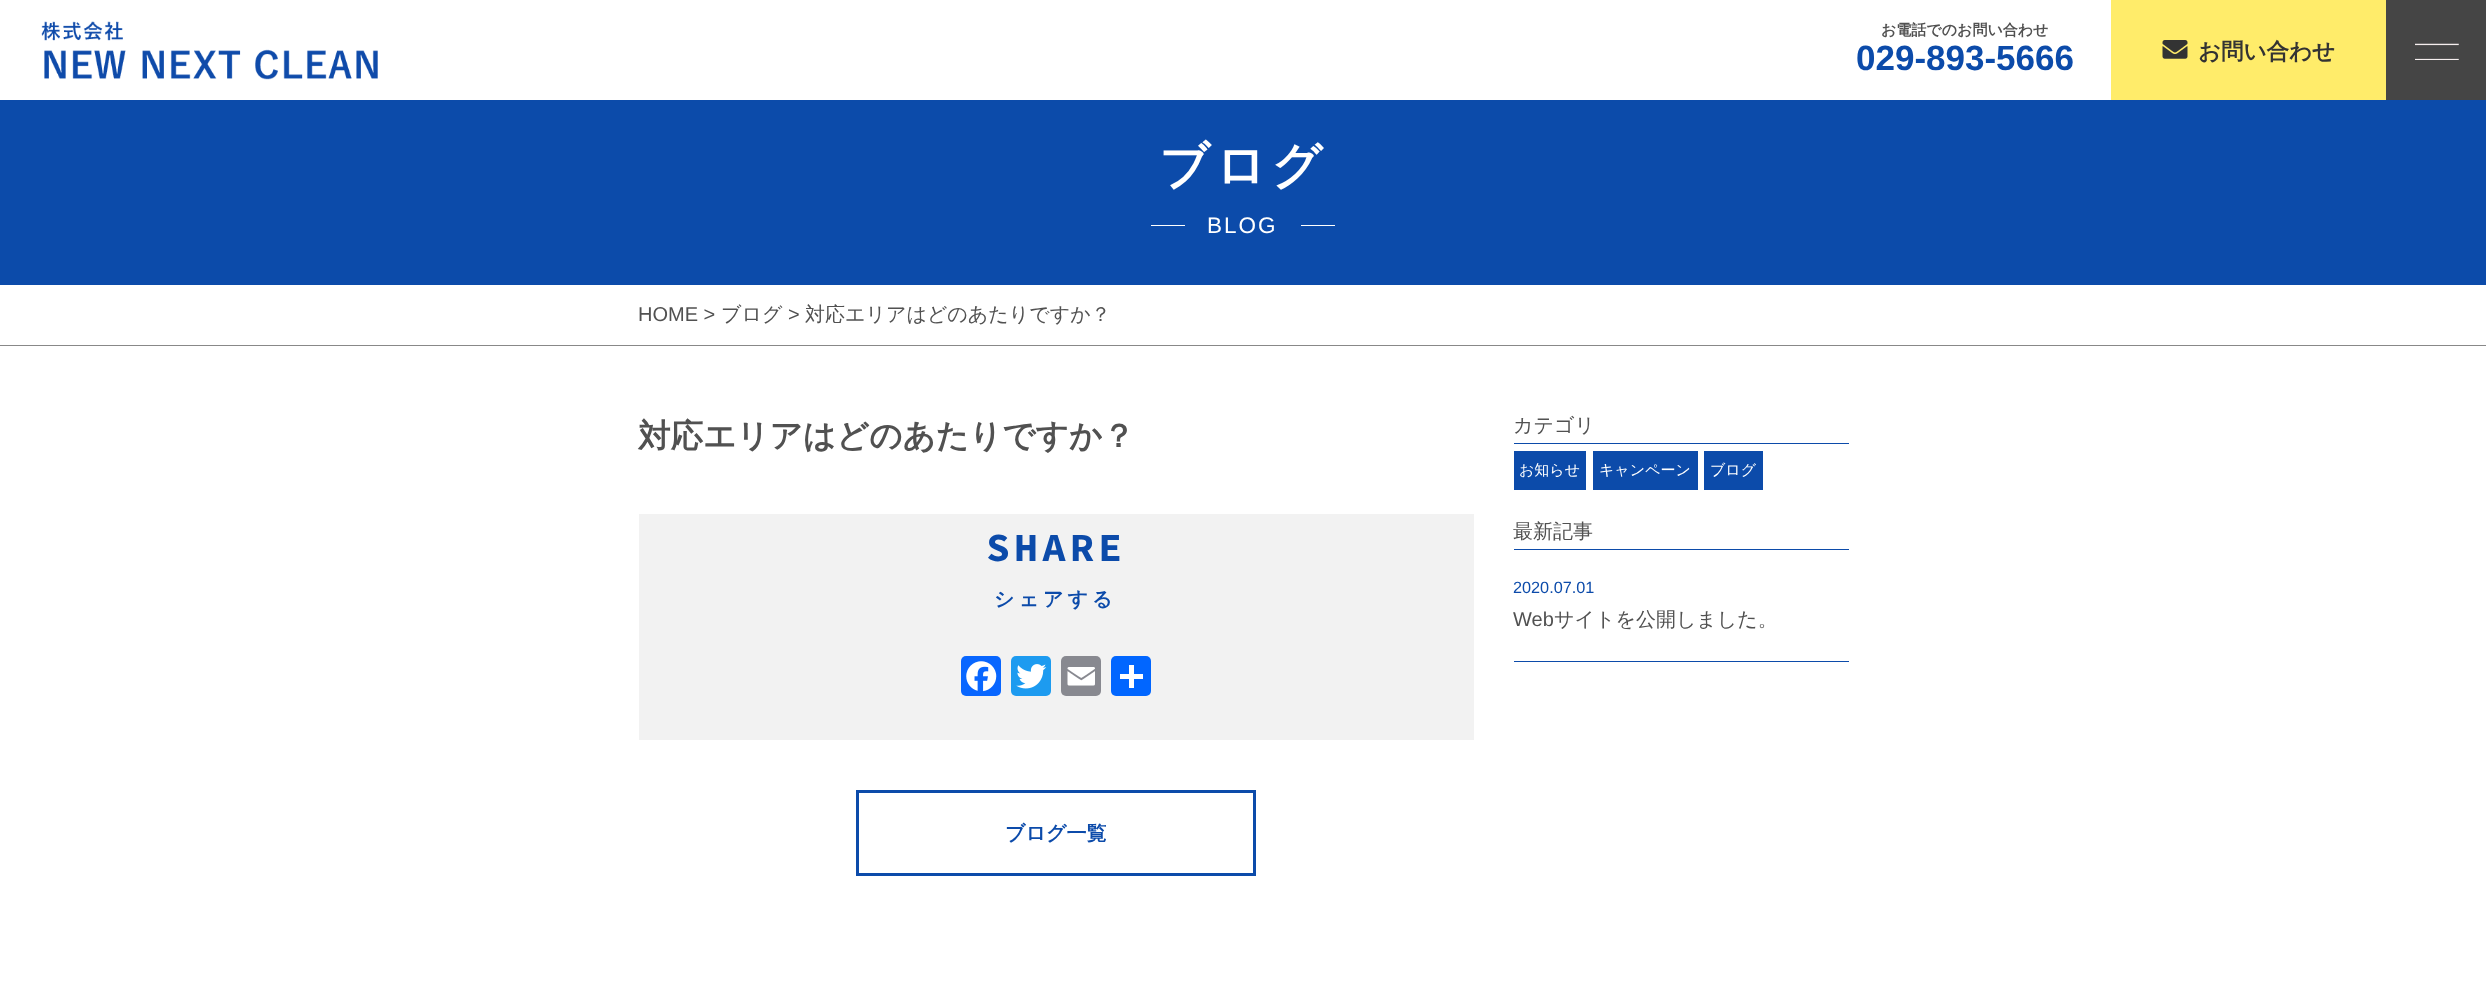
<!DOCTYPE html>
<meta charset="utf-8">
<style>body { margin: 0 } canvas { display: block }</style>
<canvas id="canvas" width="2486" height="1004"></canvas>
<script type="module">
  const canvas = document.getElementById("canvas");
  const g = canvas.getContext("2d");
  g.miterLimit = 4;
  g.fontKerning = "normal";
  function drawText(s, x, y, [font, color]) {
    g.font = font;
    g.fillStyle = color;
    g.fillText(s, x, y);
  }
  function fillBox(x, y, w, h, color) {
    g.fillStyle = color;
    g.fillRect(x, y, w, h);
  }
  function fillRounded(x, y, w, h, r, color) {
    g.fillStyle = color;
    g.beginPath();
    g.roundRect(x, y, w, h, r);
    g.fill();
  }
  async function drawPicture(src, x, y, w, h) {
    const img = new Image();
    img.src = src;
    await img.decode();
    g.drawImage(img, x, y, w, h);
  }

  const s1 = ["bold 15px WenQuanYi Zen Hei", "#515151"];
  const s2 = ["bold 35px Liberation Sans", "#0C4BAA"];
  const s3 = ["bold 22.5px WenQuanYi Zen Hei", "#333333"];
  const s4 = ["bold 50px WenQuanYi Zen Hei", "#FFFFFF"];
  const s5 = ["22.5px Liberation Sans", "#FFFFFF"];
  const s6 = ["20px Liberation Sans", "#515151"];
  const s7 = ["500 20px WenQuanYi Zen Hei", "#515151"];
  const s8 = ["bold 32.5px WenQuanYi Zen Hei", "#515151"];
  const s9 = ["bold 40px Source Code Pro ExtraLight", "#0C4BAA"];
  const s10 = ["bold 20px WenQuanYi Zen Hei", "#0C4BAA"];
  const s11 = ["500 15px WenQuanYi Zen Hei", "#FFFFFF"];
  const s12 = ["16.25px Liberation Sans", "#0C4BAA"];

  fillBox(0, 0, 2486, 1004, "#FFFFFF");
  await drawPicture("pic1.png", 41, 21, 337, 59);
  drawText("お電話でのお問い合わせ", 1881, 35, s1);
  drawText("029-893-5666", 1856, 70, s2);
  fillBox(2111, 0, 275, 100, "#FFEC6A");
  await drawPicture("pic2.png", 2162, 40, 26, 19);
  drawText("お問い合わせ", 2198, 59, s3);
  fillBox(2386, 0, 100, 100, "#454545");
  await drawPicture("pic3.png", 2415, 43, 44, 17);
  fillBox(0, 100, 2486, 185, "#0C4BAA");
  g.letterSpacing = "5px";
  drawText("ブログ", 1159, 183, s4);
  fillBox(1151, 225, 34, 1, "#FFFFFF");
  g.letterSpacing = "2px";
  drawText("BLOG", 1207, 233, s5);
  fillBox(1301, 225, 34, 1, "#FFFFFF");
  fillBox(0, 345, 2486, 1, "#888888");
  g.letterSpacing = "0px";
  drawText("HOME >", 638, 321, s6);
  drawText("ブログ", 721, 321, s7);
  drawText(">", 788, 321, s6);
  drawText("対応エリアはどのあたりですか？", 805, 321, s7);
  drawText("対応エリアはどのあたりですか？", 638, 447, s8);
  fillBox(639, 514, 835, 226, "#F2F2F2");
  g.letterSpacing = "4px";
  drawText("SHARE", 986, 561, s9);
  drawText("シェアする", 994, 606, s10);
  fillRounded(961, 656, 40, 40, 5, "#0866FF");
  await drawPicture("pic4.png", 966, 661, 31, 31);
  fillRounded(1011, 656, 40, 40, 5, "#1D9BF0");
  await drawPicture("pic5.png", 1016, 664, 31, 25);
  fillRounded(1061, 656, 40, 40, 5, "#888990");
  await drawPicture("pic6.png", 1067, 667, 28, 19);
  fillRounded(1111, 656, 40, 40, 5, "#0166FF");
  fillBox(1129, 665, 5, 23, "#FFFFFF");
  fillBox(1120, 674, 23, 5, "#FFFFFF");
  g.strokeStyle = "#0C4BAA";
  g.lineWidth = 3;
  g.strokeRect(857.5, 791.5, 397, 83);
  g.letterSpacing = "0px";
  drawText("ブログ一覧", 1005, 840, s10);
  fillBox(1514, 443, 335, 1, "#0C4BAA");
  drawText("カテゴリ", 1513, 432, s7);
  fillBox(1514, 451, 72, 39, "#0C4BAA");
  drawText("お知らせ", 1519, 475, s11);
  fillBox(1593, 451, 105, 39, "#0C4BAA");
  drawText("キャンペーン", 1599, 475, s11);
  fillBox(1704, 451, 59, 39, "#0C4BAA");
  drawText("ブログ", 1710, 475, s11);
  fillBox(1514, 549, 335, 1, "#0C4BAA");
  drawText("最新記事", 1513, 538, s7);
  fillBox(1514, 661, 335, 1, "#0C4BAA");
  drawText("2020.07.01", 1513, 593, s12);
  drawText("Web", 1513, 626, s6);
  drawText("サイトを公開しました。", 1554, 626, s7);
</script>
